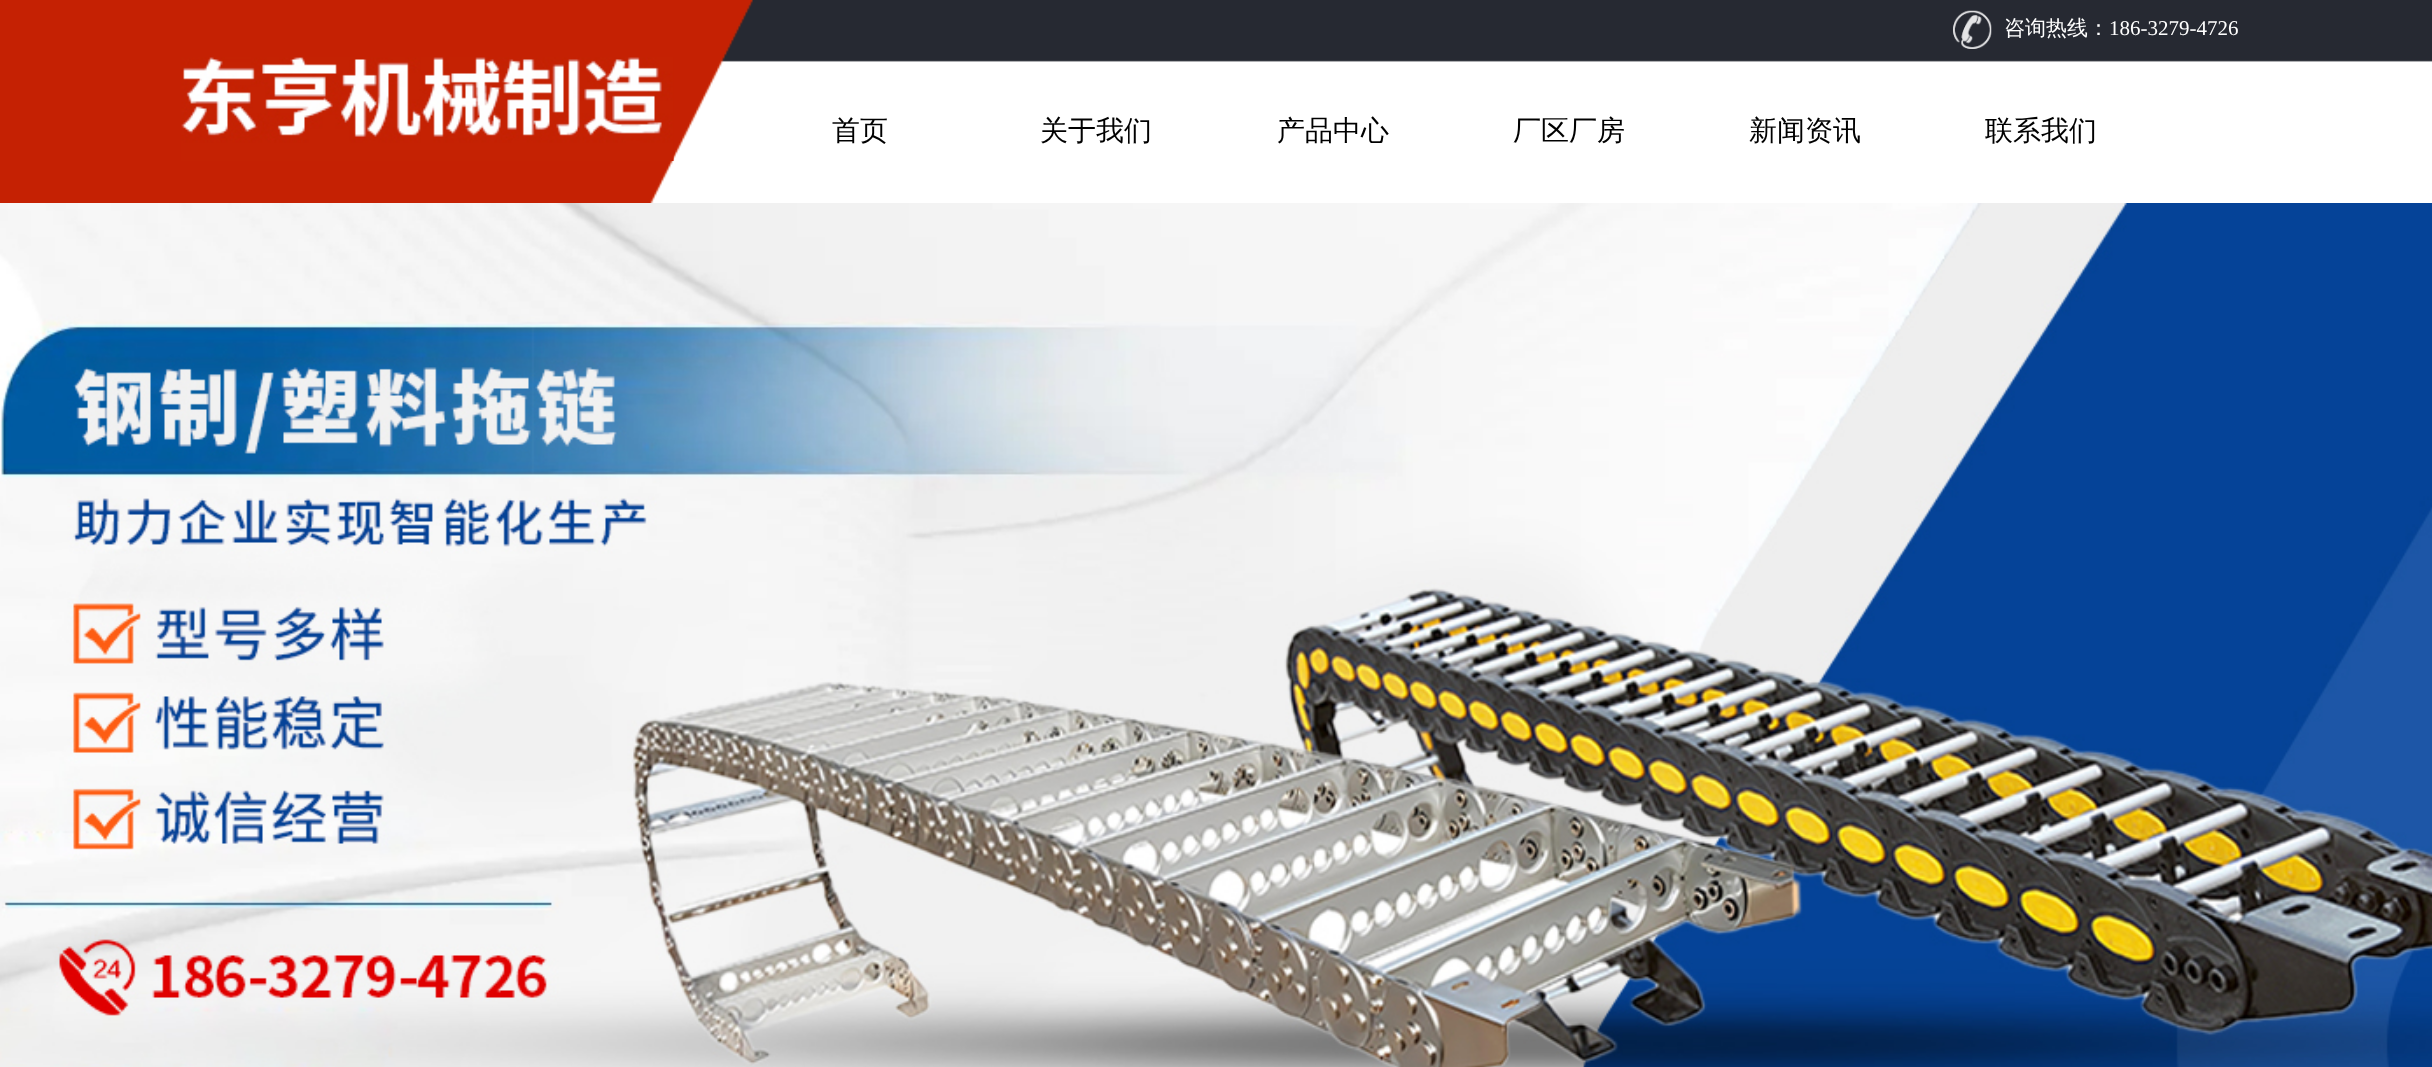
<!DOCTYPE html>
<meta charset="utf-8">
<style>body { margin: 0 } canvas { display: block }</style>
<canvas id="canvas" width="2432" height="1067"></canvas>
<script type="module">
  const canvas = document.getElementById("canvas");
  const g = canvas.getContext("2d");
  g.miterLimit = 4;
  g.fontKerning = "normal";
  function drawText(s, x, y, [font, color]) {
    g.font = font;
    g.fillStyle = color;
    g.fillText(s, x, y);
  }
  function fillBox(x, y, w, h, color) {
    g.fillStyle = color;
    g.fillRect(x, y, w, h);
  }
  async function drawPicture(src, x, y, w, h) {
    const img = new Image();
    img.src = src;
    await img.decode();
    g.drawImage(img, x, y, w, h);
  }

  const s1 = ["500 21px WenQuanYi Zen Hei", "#FFFFFF"];
  const s2 = ["21px Liberation Serif", "#FFFFFF"];
  const s3 = ["500 28px WenQuanYi Zen Hei", "#000000"];

  fillBox(0, 0, 2432, 1067, "#FFFFFF");
  await drawPicture("pic1.png", 0, 0, 2432, 203);
  await drawPicture("pic2.png", 1953, 10, 39, 39);
  drawText("咨询热线：", 2004, 35, s1);
  drawText("186-3279-4726", 2109, 35, s2);
  await drawPicture("pic3.png", 181, 57, 493, 104);
  drawText("首页", 832, 140, s3);
  drawText("关于我们", 1040, 140, s3);
  drawText("产品中心", 1277, 140, s3);
  drawText("厂区厂房", 1513, 140, s3);
  drawText("新闻资讯", 1749, 140, s3);
  drawText("联系我们", 1985, 140, s3);
  await drawPicture("pic4.png", 0, 203, 2432, 864);
</script>
